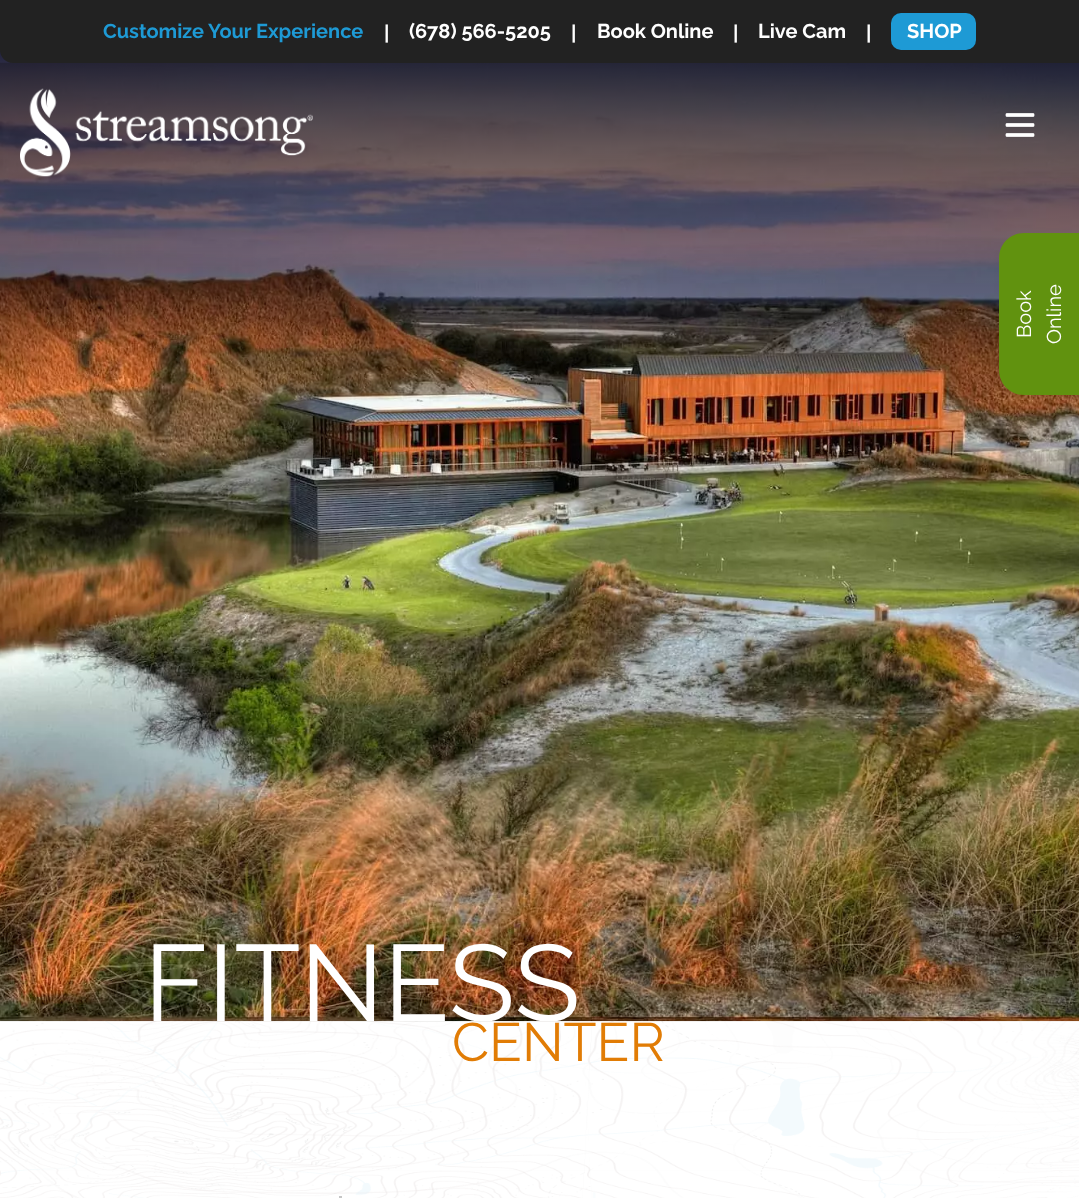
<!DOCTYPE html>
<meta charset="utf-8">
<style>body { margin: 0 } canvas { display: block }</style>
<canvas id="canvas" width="1079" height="1198"></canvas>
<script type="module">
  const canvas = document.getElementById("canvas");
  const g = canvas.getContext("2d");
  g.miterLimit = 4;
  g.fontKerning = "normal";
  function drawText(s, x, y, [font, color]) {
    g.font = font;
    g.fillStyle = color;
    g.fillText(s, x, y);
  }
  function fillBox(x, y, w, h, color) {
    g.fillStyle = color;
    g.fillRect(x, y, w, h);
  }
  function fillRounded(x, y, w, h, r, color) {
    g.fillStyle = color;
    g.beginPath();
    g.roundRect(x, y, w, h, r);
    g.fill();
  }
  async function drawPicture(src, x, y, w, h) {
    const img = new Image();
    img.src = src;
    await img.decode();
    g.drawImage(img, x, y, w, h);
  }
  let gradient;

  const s1 = ["bold 20px Raleway", "#1E9AD5"];
  const s2 = ["bold 20px Raleway", "#FFFFFF"];
  const s3 = ["108px Raleway", "#FFFFFF"];
  const s4 = ["54px Raleway", "#E17C05"];

  fillBox(0, 0, 1079, 1198, "#FFFFFF");
  await drawPicture("pic3.png", 0, 1021, 1079, 177);
  await drawPicture("pic4.png", 0, 62, 1079, 960);
  gradient = g.createLinearGradient(540, 0, 540, 375);
  gradient.addColorStop(0, "#00001E");
  gradient.addColorStop(1, "rgba(0, 0, 30, 0)");
  g.fillStyle = gradient;
  g.fillRect(0, 50, 1079, 317);
  g.fillStyle = "#222222";
  g.beginPath();
  g.moveTo(0, 0);
  g.lineTo(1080, 0);
  g.lineTo(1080, 63);
  g.lineTo(13, 63);
  g.bezierCurveTo(6, 63, 0, 57, 0, 50);
  g.closePath();
  g.fill();
  drawText("Customize Your Experience", 103, 38, s1);
  drawText("|", 384, 40, s2);
  drawText("(678) 566-5205", 409, 38, s2);
  drawText("|", 571, 40, s2);
  drawText("Book Online", 597, 38, s2);
  drawText("|", 733, 40, s2);
  drawText("Live Cam", 758, 38, s2);
  drawText("|", 866, 40, s2);
  fillRounded(891, 13, 85, 37, 10, "#1E9AD5");
  drawText("SHOP", 907, 38, s2);
  await drawPicture("pic1.png", 20, 88, 293, 89);
  await drawPicture("pic2.png", 1005, 113, 30, 24);
  g.save();
  g.beginPath();
  g.rect(0, 63, 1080, 958);
  g.clip();
  drawText("FITNESS", 144, 1021, s3);
  g.restore();
  drawText("CENTER", 452, 1061, s4);
  fillBox(339, 1196, 3, 2, "#C6C6C6");
  g.fillStyle = "#61920F";
  g.beginPath();
  g.moveTo(1024, 233);
  g.lineTo(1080, 233);
  g.lineTo(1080, 395);
  g.lineTo(1024, 395);
  g.bezierCurveTo(1010, 395, 999, 384, 999, 370);
  g.lineTo(999, 258);
  g.bezierCurveTo(999, 244, 1010, 233, 1024, 233);
  g.closePath();
  g.fill();
  g.font = "20px Raleway";
  g.fillStyle = "#FFFFFF";
  g.save();
  g.translate(1031, 338);
  g.rotate(-90 * Math.PI / 180);
  g.fillText("Book", 0, 0);
  g.restore();
  g.save();
  g.translate(1061, 344);
  g.rotate(-90 * Math.PI / 180);
  g.fillText("Online", 0, 0);
  g.restore();
</script>
